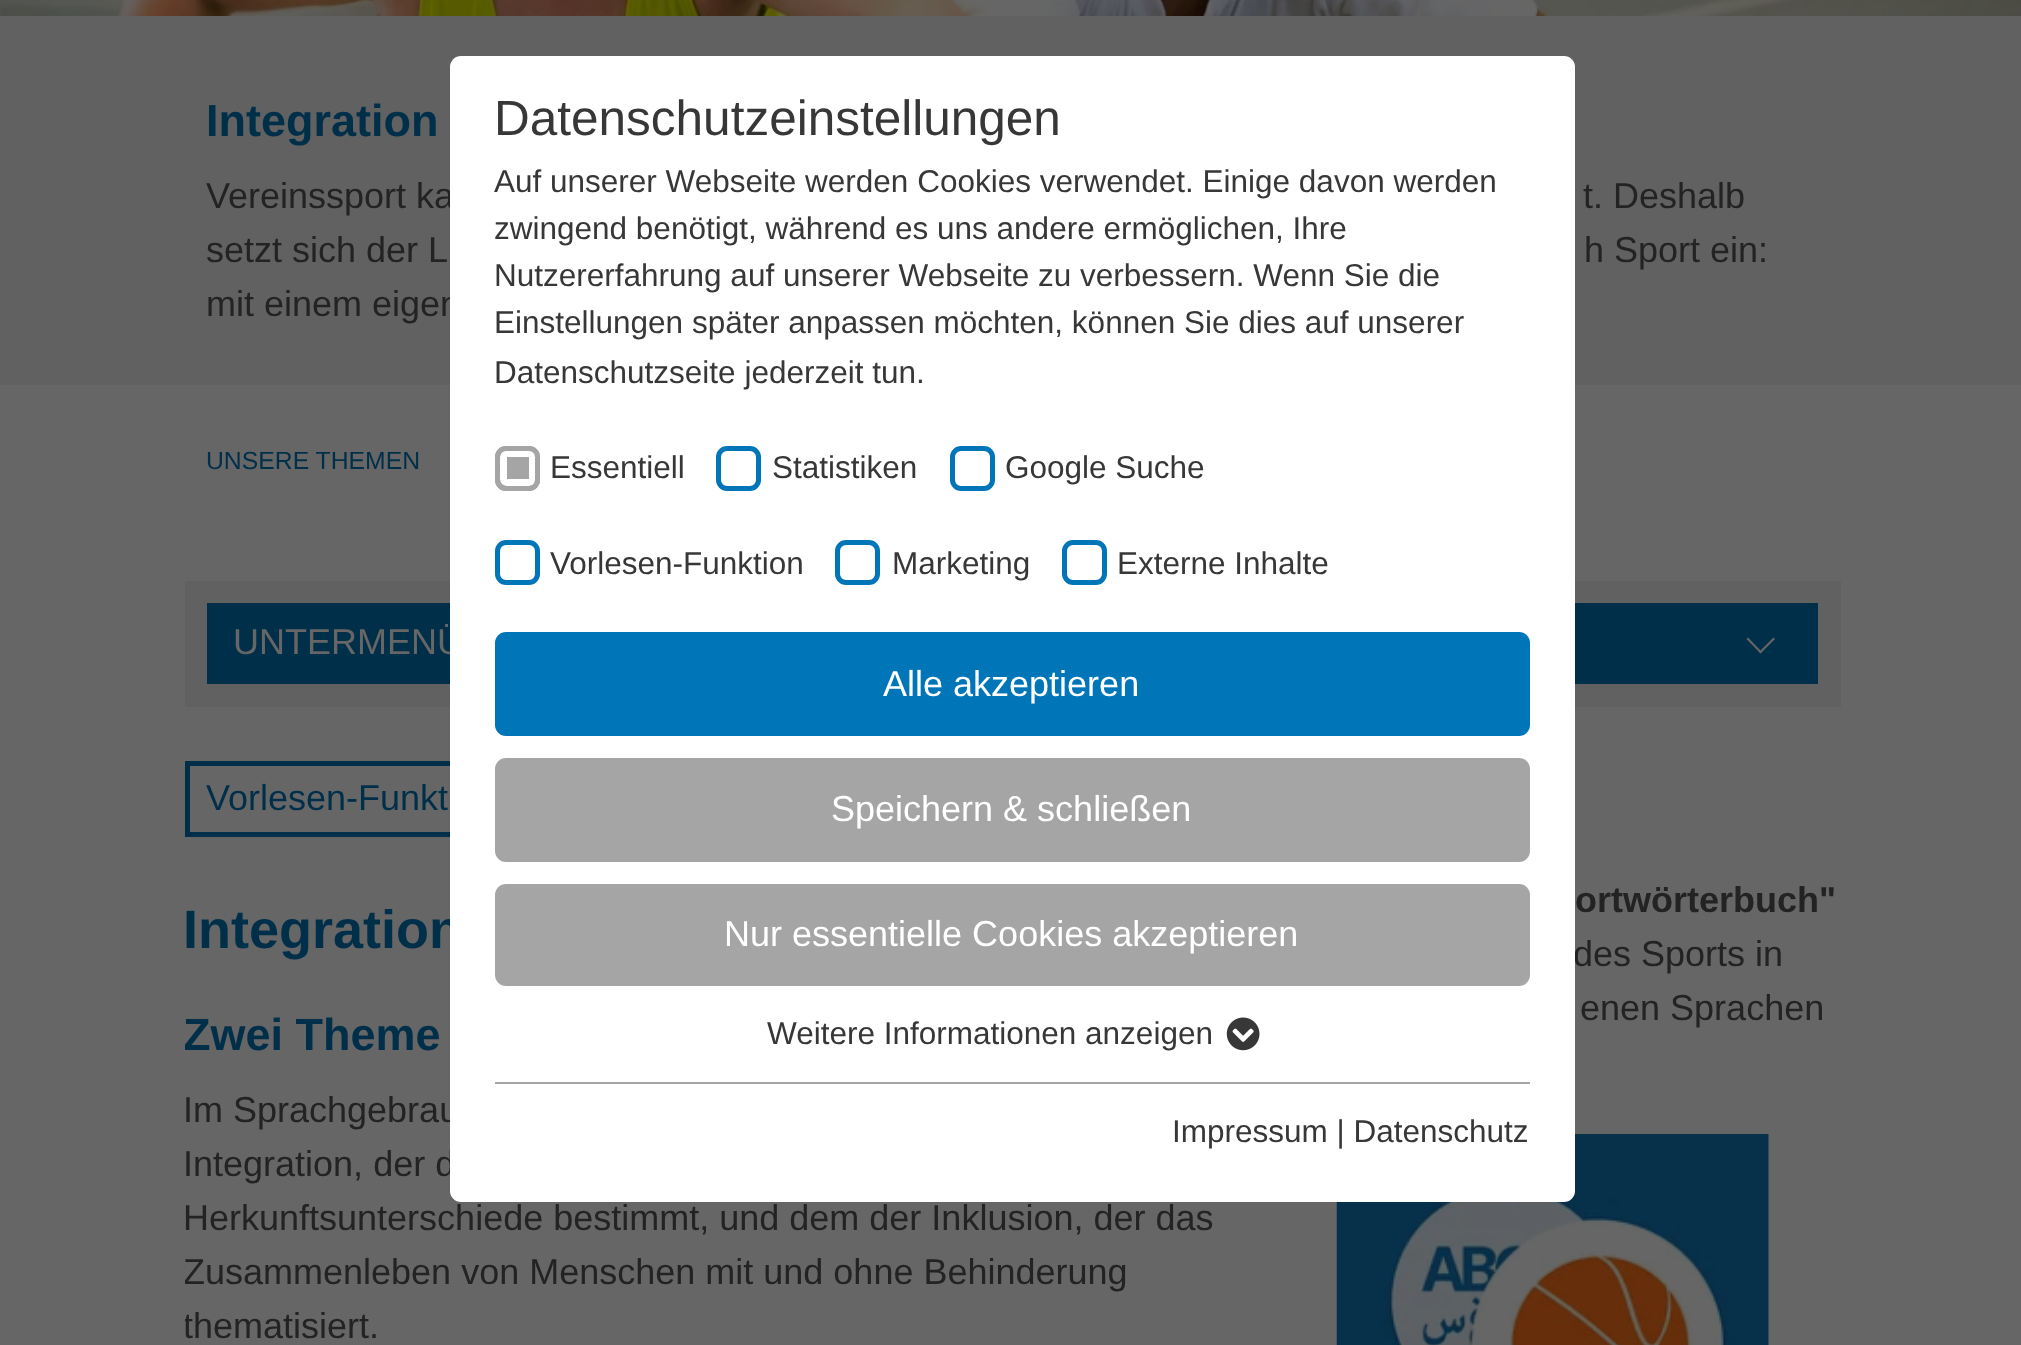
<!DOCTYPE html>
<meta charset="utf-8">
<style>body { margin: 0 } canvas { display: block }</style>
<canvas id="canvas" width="2021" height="1345"></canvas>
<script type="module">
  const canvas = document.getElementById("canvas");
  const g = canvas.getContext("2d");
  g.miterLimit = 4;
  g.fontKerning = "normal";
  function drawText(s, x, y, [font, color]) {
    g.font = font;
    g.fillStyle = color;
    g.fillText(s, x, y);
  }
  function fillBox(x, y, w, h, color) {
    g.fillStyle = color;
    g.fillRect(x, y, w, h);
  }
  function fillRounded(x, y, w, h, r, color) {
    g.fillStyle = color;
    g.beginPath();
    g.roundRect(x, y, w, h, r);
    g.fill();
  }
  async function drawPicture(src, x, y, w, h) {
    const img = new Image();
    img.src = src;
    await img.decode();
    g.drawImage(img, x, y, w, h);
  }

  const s1 = ["36px Liberation Sans", "#232324"];
  const s2 = ["36px Liberation Sans", "#666666"];
  const s3 = ["bold 54px Liberation Sans", "#002F4A"];
  const s4 = ["49.5px Liberation Sans", "#373737"];
  const s5 = ["31.5px Liberation Sans", "#373737"];
  const s6 = ["36px Liberation Sans", "#FFFFFF"];
  const s7 = ["bold 45px Liberation Sans", "#002F4A"];
  const s8 = ["24.75px Liberation Sans", "#002F4A"];
  const s9 = ["36px Liberation Sans", "#002F4A"];
  const s10 = ["bold 36px Liberation Sans", "#232324"];

  fillBox(0, 0, 2021, 1345, "#666666");
  fillBox(0, 16, 2021, 369, "#616161");
  drawText("Vereinssport ka", 206, 208, s1);
  drawText("mit einem eigen", 206, 316, s1);
  fillBox(185, 581, 1656, 126, "#616161");
  fillBox(207, 603, 1611, 81, "#002F4A");
  drawText("UNTERMENÜ", 233, 654, s2);
  g.strokeStyle = "#002F4A";
  g.lineWidth = 5;
  g.strokeRect(187.5, 763.5, 492, 71);
  drawText("Integration", 183, 948, s3);
  drawText("Im Sprachgebrau", 183, 1122, s1);
  drawText("Integration, der d", 183, 1176, s1);
  drawText("des Sports in", 1573, 966, s1);
  await drawPicture("pic3.png", 1336, 1134, 433, 211);
  fillRounded(450, 56, 1125, 1146, 11, "#FFFFFF");
  drawText("Datenschutzeinstellungen", 494, 135, s4);
  drawText("Auf unserer Webseite werden Cookies verwendet. Einige davon werden", 494, 192, s5);
  drawText("zwingend benötigt, während es uns andere ermöglichen, Ihre", 494, 239, s5);
  drawText("Nutzererfahrung auf unserer Webseite zu verbessern. Wenn Sie die", 494, 286, s5);
  drawText("Einstellungen später anpassen möchten, können Sie dies auf unserer", 494, 333, s5);
  drawText("Datenschutzseite jederzeit tun.", 494, 383, s5);
  fillRounded(495, 446, 45, 45, 11, "#A5A5A5");
  g.beginPath();
  g.roundRect(503.5, 453.5, 29, 29, 3.5);
  g.strokeStyle = "#FFFFFF";
  g.lineWidth = 7;
  g.stroke();
  g.beginPath();
  g.roundRect(497.5, 448.5, 40, 40, 8.5);
  g.strokeStyle = "#A5A5A5";
  g.lineWidth = 5;
  g.stroke();
  drawText("Essentiell", 550, 478, s5);
  g.beginPath();
  g.roundRect(718.5, 448.5, 40, 40, 8.5);
  g.strokeStyle = "#0076B9";
  g.stroke();
  drawText("Statistiken", 772, 478, s5);
  g.beginPath();
  g.roundRect(952.5, 448.5, 40, 40, 8.5);
  g.stroke();
  drawText("Google Suche", 1005, 478, s5);
  g.beginPath();
  g.roundRect(497.5, 542.5, 40, 40, 8.5);
  g.stroke();
  drawText("Vorlesen-Funktion", 550, 574, s5);
  g.beginPath();
  g.roundRect(837.5, 542.5, 40, 40, 8.5);
  g.stroke();
  drawText("Marketing", 892, 574, s5);
  g.beginPath();
  g.roundRect(1064.5, 542.5, 40, 40, 8.5);
  g.stroke();
  drawText("Externe Inhalte", 1117, 574, s5);
  fillRounded(495, 632, 1035, 104, 11, "#0076B9");
  drawText("Alle akzeptieren", 883, 696, s6);
  fillRounded(495, 758, 1035, 104, 11, "#A5A5A5");
  drawText("Speichern & schließen", 831, 821, s6);
  fillRounded(495, 884, 1035, 102, 11, "#A5A5A5");
  drawText("Nur essentielle Cookies akzeptieren", 724, 946, s6);
  drawText("Weitere Informationen anzeigen", 767, 1044, s5);
  await drawPicture("pic1.png", 1226, 1017, 34, 34);
  fillBox(495, 1082, 1035, 2, "#A5A5A5");
  drawText("Impressum | Datenschutz", 1172, 1142, s5);
  await drawPicture("pic2.png", 0, 0, 2021, 16);
  drawText("Integration", 206, 136, s7);
  drawText("t. Deshalb", 1583, 208, s1);
  drawText("setzt sich der L", 206, 262, s1);
  drawText("h Sport ein:", 1584, 262, s1);
  drawText("UNSERE THEMEN", 206, 469, s8);
  g.fillStyle = "#666666";
  g.beginPath();
  g.moveTo(1773.5, 637.5);
  g.lineTo(1775, 639);
  g.lineTo(1760.5, 653.5);
  g.lineTo(1759, 652);
  g.closePath();
  g.fill();
  g.beginPath();
  g.moveTo(1748, 637.5);
  g.lineTo(1762, 652);
  g.lineTo(1760.5, 653.5);
  g.lineTo(1746.5, 639);
  g.closePath();
  g.fill();
  drawText("Vorlesen-Funkt", 206, 810, s9);
  g.save();
  g.beginPath();
  g.rect(185, 986, 1080, 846);
  g.clip();
  drawText("Zwei Theme", 183, 1050, s7);
  g.restore();
  drawText("Herkunftsunterschiede bestimmt, und dem der Inklusion, der das", 183, 1230, s1);
  g.save();
  g.beginPath();
  g.rect(185, 986, 1080, 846);
  g.clip();
  drawText("Zusammenleben von Menschen mit und ohne Behinderung", 183, 1284, s1);
  drawText("thematisiert.", 183, 1338, s1);
  g.restore();
  drawText("ortwörterbuch\"", 1575, 912, s10);
  drawText("enen Sprachen", 1580, 1020, s1);
</script>
